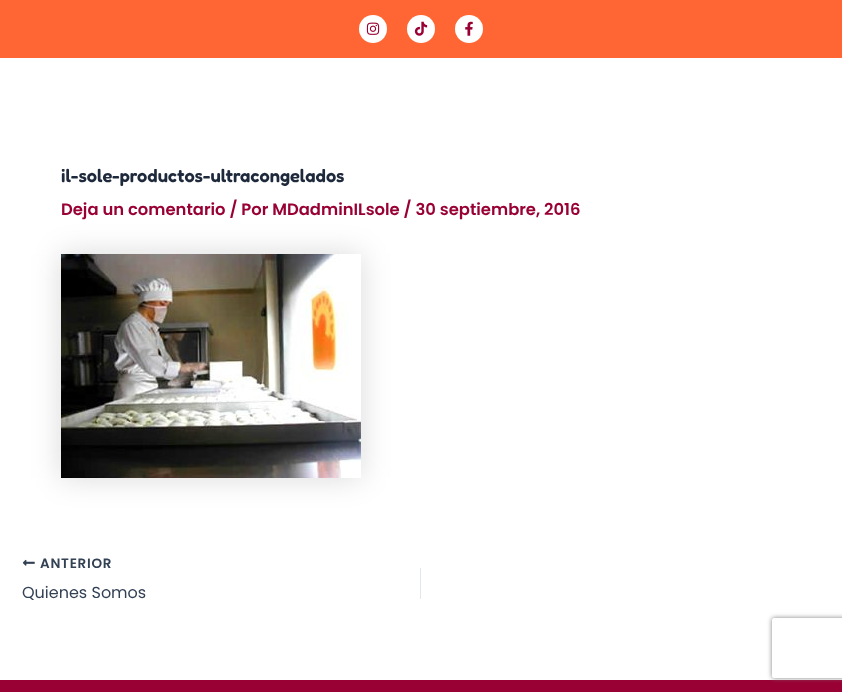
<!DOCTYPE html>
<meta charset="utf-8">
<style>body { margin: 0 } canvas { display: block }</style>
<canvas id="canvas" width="842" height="692"></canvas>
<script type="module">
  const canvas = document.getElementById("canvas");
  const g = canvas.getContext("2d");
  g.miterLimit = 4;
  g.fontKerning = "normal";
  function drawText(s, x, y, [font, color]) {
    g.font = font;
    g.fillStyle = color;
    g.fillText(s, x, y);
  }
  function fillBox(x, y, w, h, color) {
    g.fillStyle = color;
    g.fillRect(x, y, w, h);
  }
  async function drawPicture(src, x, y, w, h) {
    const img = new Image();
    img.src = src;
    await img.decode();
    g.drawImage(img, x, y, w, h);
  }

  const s1 = ["600 18.25px Fredoka", "#1E293B"];
  const s2 = ["600 16.4px Poppins", "#990033"];
  const s3 = ["600 13.5px Poppins", "#334155"];
  const s4 = ["16px Poppins", "#334155"];

  fillBox(0, 0, 842, 692, "#FFFFFF");
  fillBox(0, 0, 842, 58, "#FF6633");
  g.fillStyle = "#FFFFFF";
  g.beginPath();
  g.arc(373, 29, 14, 0, Math.PI * 2);
  g.fill();
  await drawPicture("pic1.png", 366, 22, 14, 13);
  g.beginPath();
  g.arc(421, 29, 14, 0, Math.PI * 2);
  g.fill();
  await drawPicture("pic2.png", 414, 21, 14, 15);
  g.beginPath();
  g.arc(469, 29, 14, 0, Math.PI * 2);
  g.fill();
  await drawPicture("pic3.png", 465, 21, 8, 15);
  drawText("il-sole-productos-ultracongelados", 61, 182, s1);
  drawText("Deja un comentario / Por MDadminILsole / 30 septiembre, 2016", 61, 215, s2);
  g.fillStyle = "rgba(0, 0, 0, 0.15)";
  g.filter = "blur(15px)";
  g.beginPath();
  g.rect(61, 254, 300, 224);
  g.fill();
  g.filter = "none";
  await drawPicture("pic4.png", 61, 254, 300, 224);
  await drawPicture("pic5.png", 22, 559, 13, 7);
  g.letterSpacing = "0.75px";
  drawText("ANTERIOR", 40, 568, s3);
  g.letterSpacing = "0px";
  drawText("Quienes Somos", 22, 598, s4);
  fillBox(420, 568, 1, 31, "#E1E8ED");
  fillBox(0, 680, 842, 12, "#990033");
  g.save();
  g.beginPath();
  g.moveTo(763, 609);
  g.lineTo(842, 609);
  g.lineTo(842, 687);
  g.lineTo(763, 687);
  g.closePath();
  g.moveTo(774, 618);
  g.lineTo(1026, 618);
  g.bezierCurveTo(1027, 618, 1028, 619, 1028, 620);
  g.lineTo(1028, 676);
  g.bezierCurveTo(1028, 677, 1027, 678, 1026, 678);
  g.lineTo(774, 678);
  g.bezierCurveTo(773, 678, 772, 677, 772, 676);
  g.lineTo(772, 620);
  g.bezierCurveTo(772, 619, 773, 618, 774, 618);
  g.closePath();
  g.clip("evenodd");
  g.fillStyle = "#808080";
  g.filter = "blur(2.5px)";
  g.beginPath();
  g.roundRect(772, 618, 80, 60, 2);
  g.fill();
  g.filter = "none";
  g.restore();
</script>
